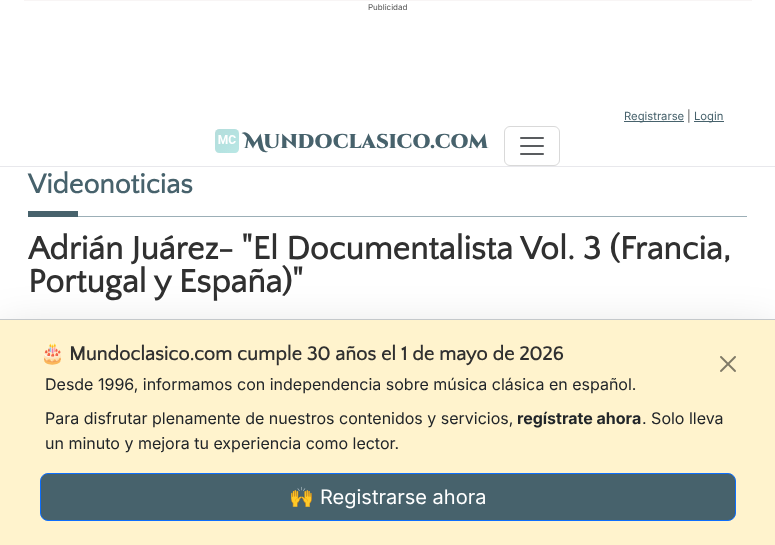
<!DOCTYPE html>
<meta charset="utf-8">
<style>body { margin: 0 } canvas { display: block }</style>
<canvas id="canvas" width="775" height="545"></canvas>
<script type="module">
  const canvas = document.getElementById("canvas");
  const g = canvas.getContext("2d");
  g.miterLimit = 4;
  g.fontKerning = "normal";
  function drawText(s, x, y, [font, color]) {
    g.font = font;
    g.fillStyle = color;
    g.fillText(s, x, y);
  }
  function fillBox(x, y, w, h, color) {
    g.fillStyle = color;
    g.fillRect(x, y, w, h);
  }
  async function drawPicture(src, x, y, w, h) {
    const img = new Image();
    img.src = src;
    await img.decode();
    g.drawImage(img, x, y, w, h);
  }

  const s1 = ["8px Inter", "#505050"];
  const s2 = ["11.25px Inter", "#47626C"];
  const s3 = ["11.25px Inter", "#505050"];
  const s4 = ["900 20px Cinzel Decorative", "#47626C"];
  const s5 = ["bold 28.25px Quattrocento Sans", "#47626C"];
  const s6 = ["bold 33.6px Quattrocento Sans", "#303030"];
  const s7 = ["bold 20px Noto Color Emoji", "#303030"];
  const s8 = ["bold 20px Quattrocento Sans", "#303030"];
  const s9 = ["16px Inter", "#212529"];
  const s10 = ["bold 16px Inter", "#212529"];
  const s11 = ["20px Noto Color Emoji", "#FFFFFF"];
  const s12 = ["20px Inter", "#FFFFFF"];

  fillBox(0, 0, 775, 545, "#FFFFFF");
  fillBox(24, 0, 728, 1, "#F8F5F5");
  drawText("Publicidad", 368, 10, s1);
  fillBox(0, 166, 775, 1, "#E8E8EC");
  fillBox(624, 121, 60, 1, "#47626C");
  drawText("Registrarse", 624, 120, s2);
  drawText("|", 687, 120, s3);
  fillBox(694, 121, 30, 1, "#47626C");
  drawText("Login", 694, 120, s2);
  await drawPicture("pic1.png", 215, 129, 24, 24);
  drawText("Mundoclasico.com", 244, 148, s4);
  g.beginPath();
  g.roundRect(504.5, 126.5, 55, 39, 5.5);
  g.strokeStyle = "#D9D9D9";
  g.stroke();
  await drawPicture("pic2.png", 520, 137, 24, 18);
  fillBox(78, 216, 669, 1, "#9CAFB7");
  drawText("Videonoticias", 28, 193, s5);
  fillBox(28, 211, 50, 6, "#47626C");
  drawText("Adrián Juárez- \"El Documentalista Vol. 3 (Francia,", 28, 259, s6);
  drawText("Portugal y España)\"", 28, 292, s6);
  g.fillStyle = "rgba(0, 0, 0, 0.18)";
  g.filter = "blur(24px)";
  g.beginPath();
  g.rect(0, 335, 775, 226);
  g.fill();
  g.filter = "none";
  fillBox(0, 320, 775, 225, "#FFF3CD");
  fillBox(0, 319, 775, 1, "#C4C8CB");
  drawText("🎂", 40, 360, s7);
  drawText("Mundoclasico.com cumple 30 años el 1 de mayo de 2026", 69, 360, s8);
  await drawPicture("pic3.png", 720, 356, 16, 16);
  drawText("Desde 1996, informamos con independencia sobre música clásica en español.", 45, 390, s9);
  drawText("Para disfrutar plenamente de nuestros contenidos y servicios,", 45, 424, s9);
  drawText("regístrate ahora", 517, 424, s10);
  drawText(". Solo lleva", 642, 424, s9);
  drawText("un minuto y mejora tu experiencia como lector.", 45, 449, s9);
  g.fillStyle = "#47626C";
  g.beginPath();
  g.roundRect(40.5, 473.5, 695, 47, 7.5);
  g.fill();
  g.strokeStyle = "#0D6EFD";
  g.stroke();
  drawText("🙌", 289, 504, s11);
  drawText("Registrarse ahora", 320, 504, s12);
</script>
